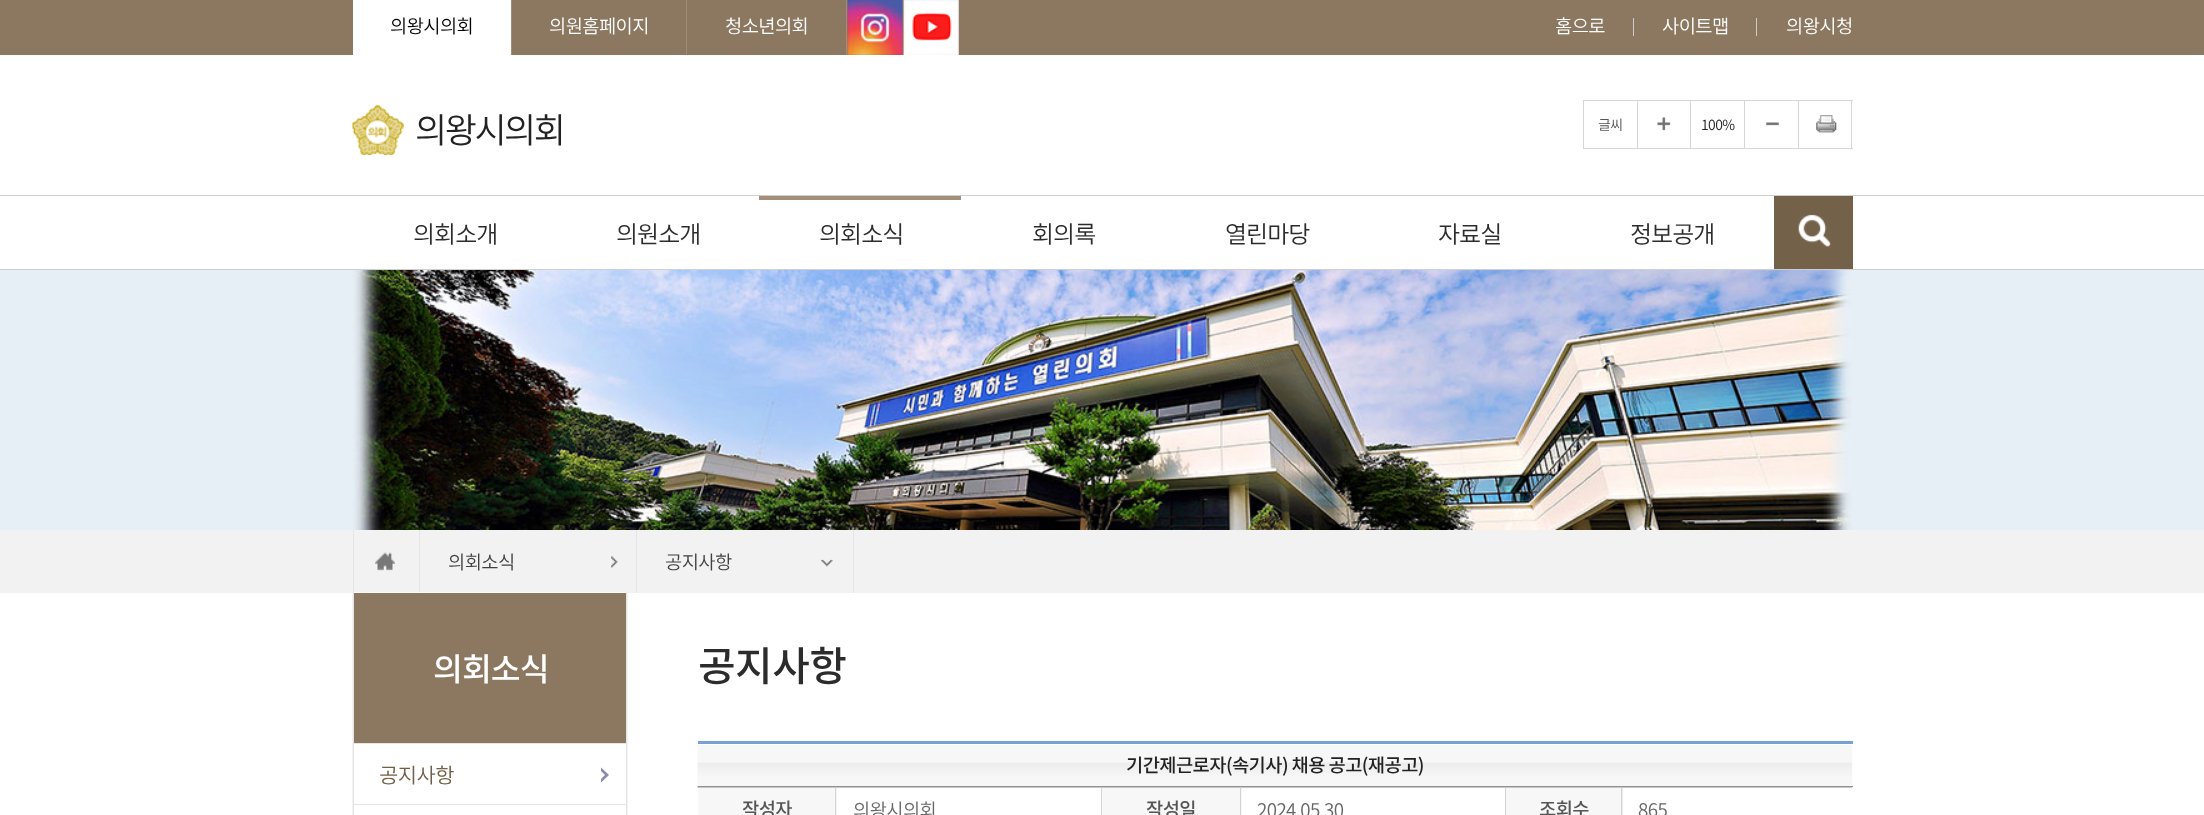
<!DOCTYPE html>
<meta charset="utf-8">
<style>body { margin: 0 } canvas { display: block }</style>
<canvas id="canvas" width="2204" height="815"></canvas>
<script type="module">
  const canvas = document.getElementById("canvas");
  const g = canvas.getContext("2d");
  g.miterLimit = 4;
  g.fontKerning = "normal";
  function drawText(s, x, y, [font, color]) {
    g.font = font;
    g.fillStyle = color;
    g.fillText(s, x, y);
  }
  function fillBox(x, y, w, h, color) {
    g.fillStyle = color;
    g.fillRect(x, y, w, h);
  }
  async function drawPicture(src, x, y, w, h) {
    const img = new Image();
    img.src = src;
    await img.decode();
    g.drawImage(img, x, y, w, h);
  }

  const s1 = ["300 18.75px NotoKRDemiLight", "#020202"];
  const s2 = ["300 18.75px NotoKRDemiLight", "#FFFFFF"];
  const s3 = ["300 35px Noto Sans KR", "#222222"];
  const s4 = ["300 14px Noto Sans KR", "#555555"];
  const s5 = ["300 14px Noto Sans KR", "#222222"];
  const s6 = ["300 24px Noto Sans KR", "#2C2C2C"];
  const s7 = ["300 18.75px Noto Sans KR", "#404040"];
  const s8 = ["500 32.5px Noto Sans KR", "#FFFFFF"];
  const s9 = ["300 21px Noto Sans KR", "#725E47"];
  const s10 = ["500 41px Noto Sans KR", "#2C2C2C"];
  const s11 = ["500 18.75px Noto Sans KR", "#222222"];
  const s12 = ["500 18.75px Noto Sans KR", "#555555"];
  const s13 = ["300 18.75px Noto Sans KR", "#666666"];

  fillBox(0, 0, 2204, 815, "#FFFFFF");
  fillBox(0, 0, 2204, 55, "#8C7860");
  fillBox(353, 0, 158, 55, "#FFFFFF");
  g.letterSpacing = "-0.6px";
  drawText("의왕시의회", 390, 33, s1);
  fillBox(511, 0, 1, 55, "#9F8D77");
  drawText("의원홈페이지", 549, 33, s2);
  fillBox(686, 0, 1, 55, "#9F8D77");
  drawText("청소년의회", 725, 33, s2);
  fillBox(846, 0, 1, 55, "#9F8D77");
  await drawPicture("pic1.png", 847, 0, 56, 55);
  fillBox(903, 0, 1, 55, "#9F8D77");
  await drawPicture("pic2.png", 903, 0, 56, 55);
  drawText("홈으로", 1555, 33, s2);
  fillBox(1633, 18, 1, 18, "#CCCCCC");
  drawText("사이트맵", 1662, 33, s2);
  fillBox(1756, 18, 1, 18, "#CCCCCC");
  drawText("의왕시청", 1786, 33, s2);
  await drawPicture("pic3.png", 352, 105, 52, 50);
  g.letterSpacing = "-2.5px";
  drawText("의왕시의회", 415, 143, s3);
  fillBox(1638, 100, 215, 1, "#D6D6D6");
  fillBox(1690, 100, 1, 49, "#D6D6D6");
  fillBox(1638, 148, 53, 1, "#D6D6D6");
  await drawPicture("pic4.png", 1657, 117, 14, 14);
  g.strokeStyle = "#D6D6D6";
  g.strokeRect(1583.5, 100.5, 54, 48);
  g.letterSpacing = "-0.6px";
  drawText("글씨", 1598, 130, s4);
  fillBox(1744, 100, 1, 49, "#D6D6D6");
  fillBox(1691, 148, 54, 1, "#D6D6D6");
  drawText("100%", 1701, 130, s5);
  fillBox(1798, 100, 1, 49, "#D6D6D6");
  fillBox(1745, 148, 54, 1, "#D6D6D6");
  await drawPicture("pic5.png", 1766, 122, 13, 4);
  fillBox(1851, 100, 1, 49, "#D6D6D6");
  fillBox(1799, 148, 54, 1, "#D6D6D6");
  await drawPicture("pic6.png", 1816, 115, 21, 18);
  fillBox(0, 269, 2204, 261, "#E7EFF6");
  await drawPicture("pic8.png", 353, 268, 1499, 262);
  fillBox(0, 268, 2204, 2, "rgba(255, 255, 255, 0.97)");
  fillBox(1774, 196, 79, 73, "#74614A");
  await drawPicture("pic7.png", 1798, 214, 33, 33);
  fillBox(0, 195, 2204, 1, "#CFCFCF");
  fillBox(0, 269, 2204, 1, "rgba(205, 205, 205, 0.97)");
  g.letterSpacing = "-1px";
  drawText("의회소개", 413, 243, s6);
  drawText("의원소개", 616, 243, s6);
  fillBox(759, 196, 202, 4, "#A2907B");
  drawText("의회소식", 819, 243, s6);
  drawText("회의록", 1032, 243, s6);
  drawText("열린마당", 1225, 243, s6);
  drawText("자료실", 1438, 243, s6);
  drawText("정보공개", 1630, 243, s6);
  fillBox(0, 530, 2204, 63, "#F2F2F2");
  await drawPicture("pic9.png", 375, 552, 20, 19);
  fillBox(419, 530, 1, 63, "#E5E5E5");
  fillBox(353, 530, 1, 63, "#E5E5E5");
  fillBox(636, 530, 1, 63, "#E5E5E5");
  g.letterSpacing = "-0.6px";
  drawText("의회소식", 448, 569, s7);
  await drawPicture("pic10.png", 611, 556, 7, 12);
  fillBox(853, 530, 1, 63, "#E5E5E5");
  drawText("공지사항", 665, 569, s7);
  await drawPicture("pic11.png", 821, 559, 12, 8);
  await drawPicture("pic12.png", 352, 592, 276, 223);
  fillBox(626, 593, 1, 222, "#E5E5E5");
  fillBox(353, 593, 1, 222, "#E5E5E5");
  fillBox(354, 593, 272, 150, "#8C7860");
  g.letterSpacing = "-1px";
  drawText("의회소식", 433, 681, s8);
  fillBox(354, 743, 272, 1, "#E5E5E5");
  g.letterSpacing = "-0.6px";
  drawText("공지사항", 379, 783, s9);
  g.fillStyle = "#8B8CAA";
  g.beginPath();
  g.moveTo(601, 782.5);
  g.lineTo(601, 767.5);
  g.lineTo(609, 775);
  g.closePath();
  g.fill();
  g.fillStyle = "#FFFFFF";
  g.beginPath();
  g.moveTo(601, 779);
  g.lineTo(601, 771);
  g.lineTo(605, 775);
  g.closePath();
  g.fill();
  fillBox(354, 804, 272, 1, "#E5E5E5");
  drawText("공지사항", 698, 681, s10);
  await drawPicture("pic13.png", 697, 745, 1156, 70);
  fillBox(698, 741, 1155, 3, "#78A1D5");
  fillBox(835, 786, 1, 2, "#D4D4D4");
  fillBox(1240, 786, 1, 2, "#D4D4D4");
  fillBox(1101, 786, 1, 29, "#D4D4D4");
  fillBox(1621, 786, 1, 29, "#D4D4D4");
  fillBox(1505, 786, 1, 2, "#D4D4D4");
  fillBox(698, 786, 1155, 1, "#909090");
  drawText("기간제근로자(속기사) 채용 공고(재공고)", 1126, 772, s11);
  fillBox(698, 788, 137, 27, "#F7F7F7");
  drawText("작성자", 742, 816, s12);
  drawText("의왕시의회", 853, 817, s13);
  fillBox(1102, 788, 138, 27, "#F7F7F7");
  drawText("작성일", 1146, 816, s12);
  drawText("2024.05.30", 1257, 817, s13);
  fillBox(1506, 788, 115, 27, "#F7F7F7");
  drawText("조회수", 1539, 816, s12);
  drawText("865", 1638, 817, s13);
</script>
